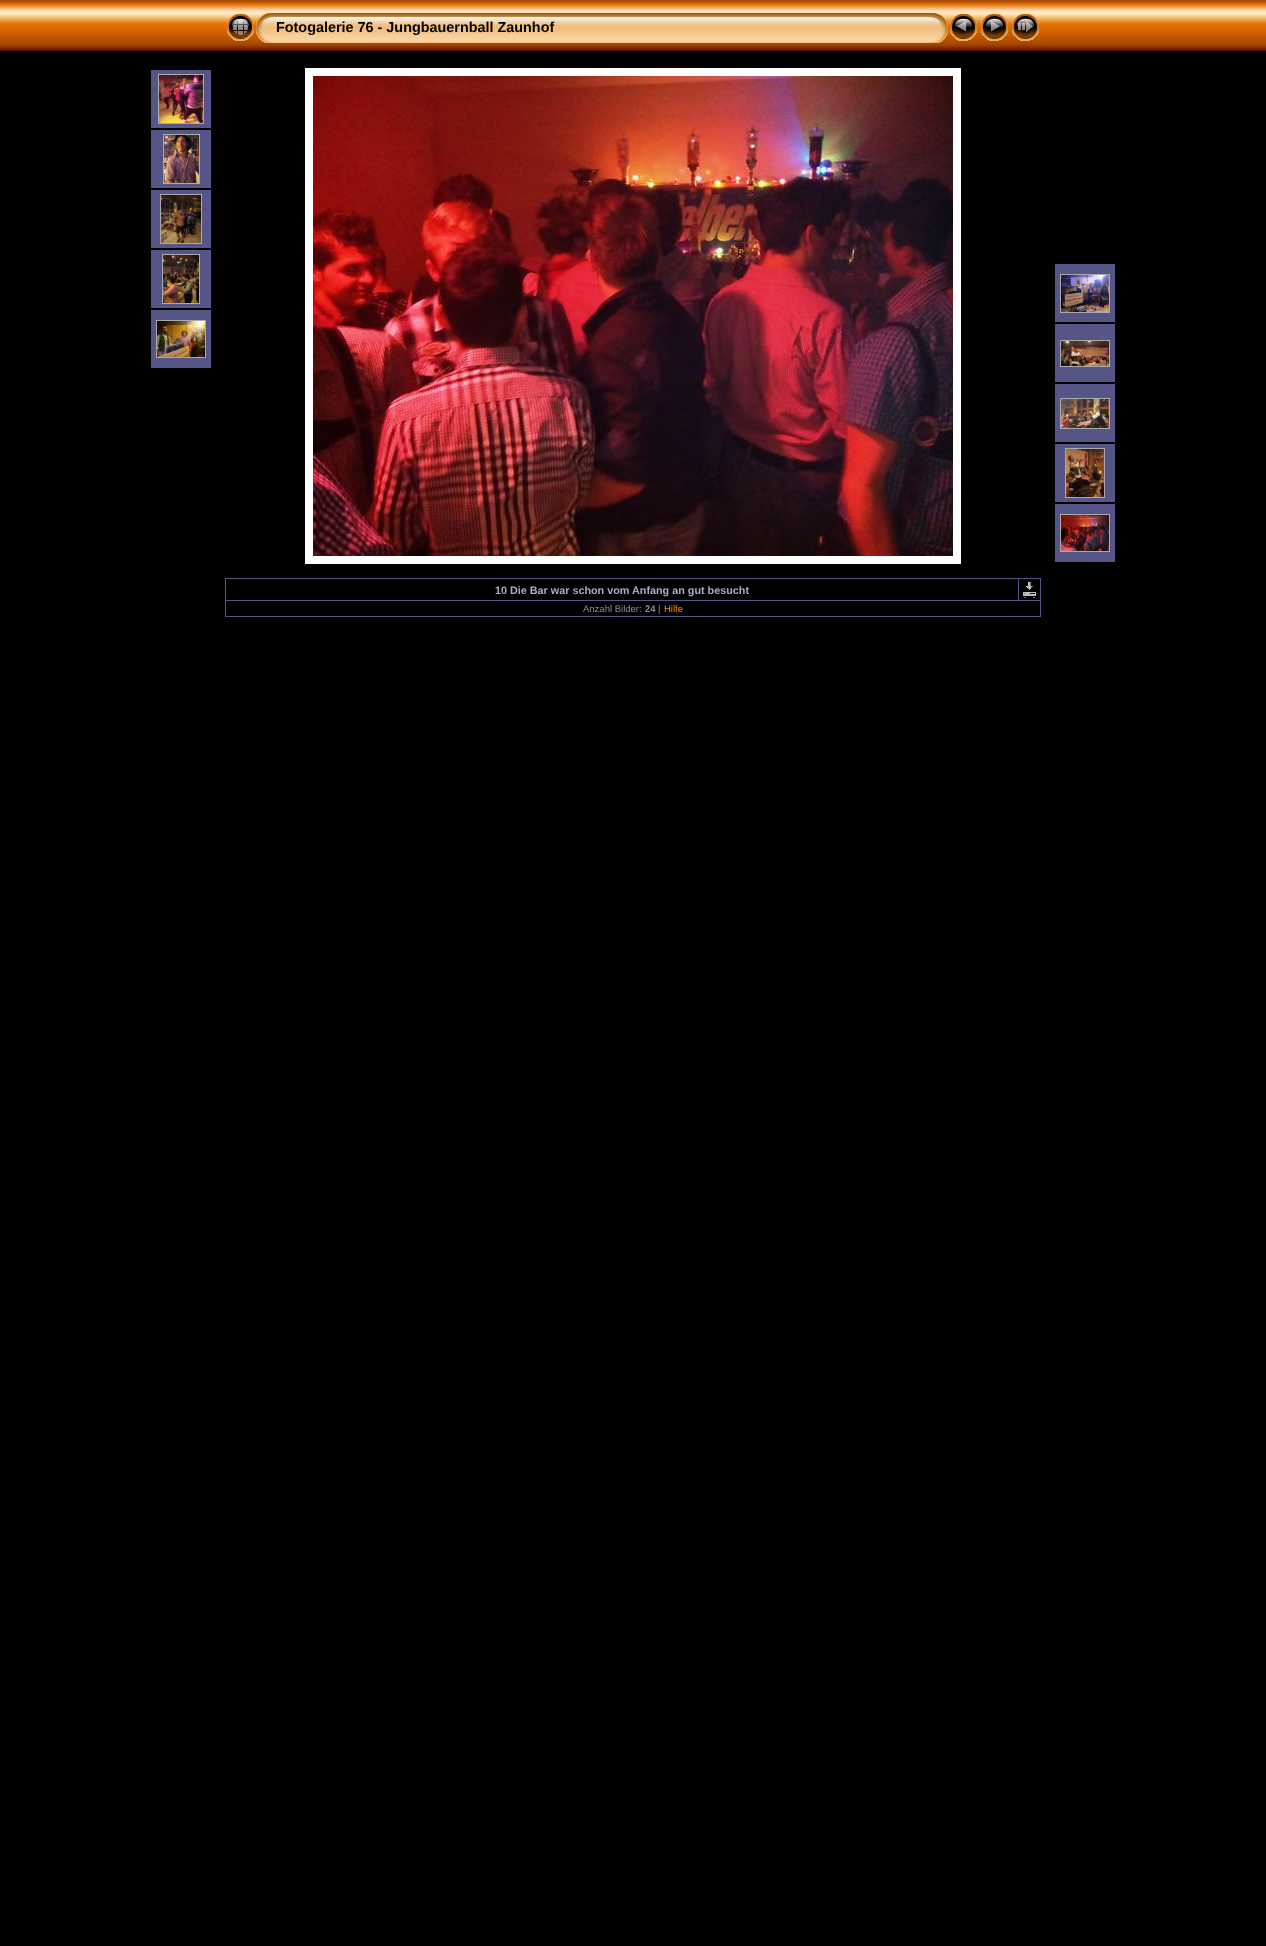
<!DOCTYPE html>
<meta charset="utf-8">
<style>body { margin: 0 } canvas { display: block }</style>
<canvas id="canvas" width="1266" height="1946"></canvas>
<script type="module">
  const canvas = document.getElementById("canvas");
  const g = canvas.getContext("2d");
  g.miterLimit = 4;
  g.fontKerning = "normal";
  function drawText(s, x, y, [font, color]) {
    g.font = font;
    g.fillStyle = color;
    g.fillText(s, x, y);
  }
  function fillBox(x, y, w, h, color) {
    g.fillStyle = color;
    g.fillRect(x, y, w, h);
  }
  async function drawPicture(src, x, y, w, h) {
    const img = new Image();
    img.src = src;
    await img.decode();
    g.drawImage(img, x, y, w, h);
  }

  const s1 = ["bold 14.4px Liberation Sans", "#000000"];
  const s2 = ["bold 10.8px Liberation Sans", "#AAAACC"];
  const s3 = ["9.5px Liberation Sans", "#8888AA"];
  const s4 = ["bold 9.5px Liberation Sans", "#8888AA"];
  const s5 = ["9.5px Liberation Sans", "#FF8800"];

  fillBox(0, 0, 1266, 1946, "#000000");
  await drawPicture("pic1.png", 0, 0, 1266, 51);
  await drawPicture("pic2.png", 227, 14, 27, 27);
  await drawPicture("pic3.png", 256, 13, 20, 30);
  await drawPicture("pic4.png", 276, 13, 652, 30);
  drawText("Fotogalerie 76 - Jungbauernball Zaunhof", 276, 32, s1);
  await drawPicture("pic5.png", 928, 13, 20, 30);
  await drawPicture("pic6.png", 950, 14, 27, 27);
  await drawPicture("pic7.png", 981, 14, 27, 27);
  await drawPicture("pic8.png", 1012, 14, 27, 27);
  fillBox(151, 70, 60, 58, "#555588");
  g.strokeStyle = "#AAAAAA";
  g.strokeRect(158.5, 74.5, 45, 49);
  await drawPicture("pic9.png", 159, 75, 44, 48);
  fillBox(151, 130, 60, 58, "#555588");
  g.strokeRect(163.5, 134.5, 36, 49);
  await drawPicture("pic10.png", 164, 135, 35, 48);
  fillBox(151, 190, 60, 58, "#555588");
  g.strokeRect(160.5, 194.5, 41, 49);
  await drawPicture("pic11.png", 161, 195, 40, 48);
  fillBox(151, 250, 60, 58, "#555588");
  g.strokeRect(162.5, 254.5, 37, 49);
  await drawPicture("pic12.png", 163, 255, 36, 48);
  fillBox(151, 310, 60, 58, "#555588");
  g.strokeRect(156.5, 320.5, 49, 37);
  await drawPicture("pic13.png", 157, 321, 48, 36);
  g.strokeStyle = "#FFFFFF";
  g.lineWidth = 8;
  g.strokeRect(309, 72, 648, 488);
  await drawPicture("pic14.png", 313, 76, 640, 480);
  fillBox(1055, 264, 60, 58, "#555588");
  g.strokeStyle = "#AAAAAA";
  g.lineWidth = 1;
  g.strokeRect(1060.5, 274.5, 49, 38);
  await drawPicture("pic15.png", 1061, 275, 48, 37);
  fillBox(1055, 324, 60, 58, "#555588");
  g.strokeRect(1060.5, 340.5, 49, 26);
  await drawPicture("pic16.png", 1061, 341, 48, 25);
  fillBox(1055, 384, 60, 58, "#555588");
  g.strokeRect(1060.5, 398.5, 49, 30);
  await drawPicture("pic17.png", 1061, 399, 48, 29);
  fillBox(1055, 444, 60, 58, "#555588");
  g.strokeRect(1065.5, 448.5, 39, 49);
  await drawPicture("pic18.png", 1066, 449, 38, 48);
  fillBox(1055, 504, 60, 58, "#555588");
  g.strokeRect(1060.5, 514.5, 49, 37);
  await drawPicture("pic19.png", 1061, 515, 48, 36);
  fillBox(225, 578, 816, 1, "#555588");
  fillBox(1040, 578, 1, 39, "#555588");
  fillBox(225, 616, 816, 1, "#555588");
  fillBox(225, 578, 1, 39, "#555588");
  drawText("10 Die Bar war schon vom Anfang an gut besucht", 495, 594, s2);
  fillBox(225, 600, 816, 1, "#555588");
  fillBox(1018, 578, 1, 23, "#555588");
  await drawPicture("pic20.png", 1023, 582, 13, 16);
  drawText("Anzahl Bilder:", 583, 612, s3);
  drawText("24", 645, 612, s4);
  drawText("|", 658, 612, s3);
  drawText("Hilfe", 664, 612, s5);
</script>
